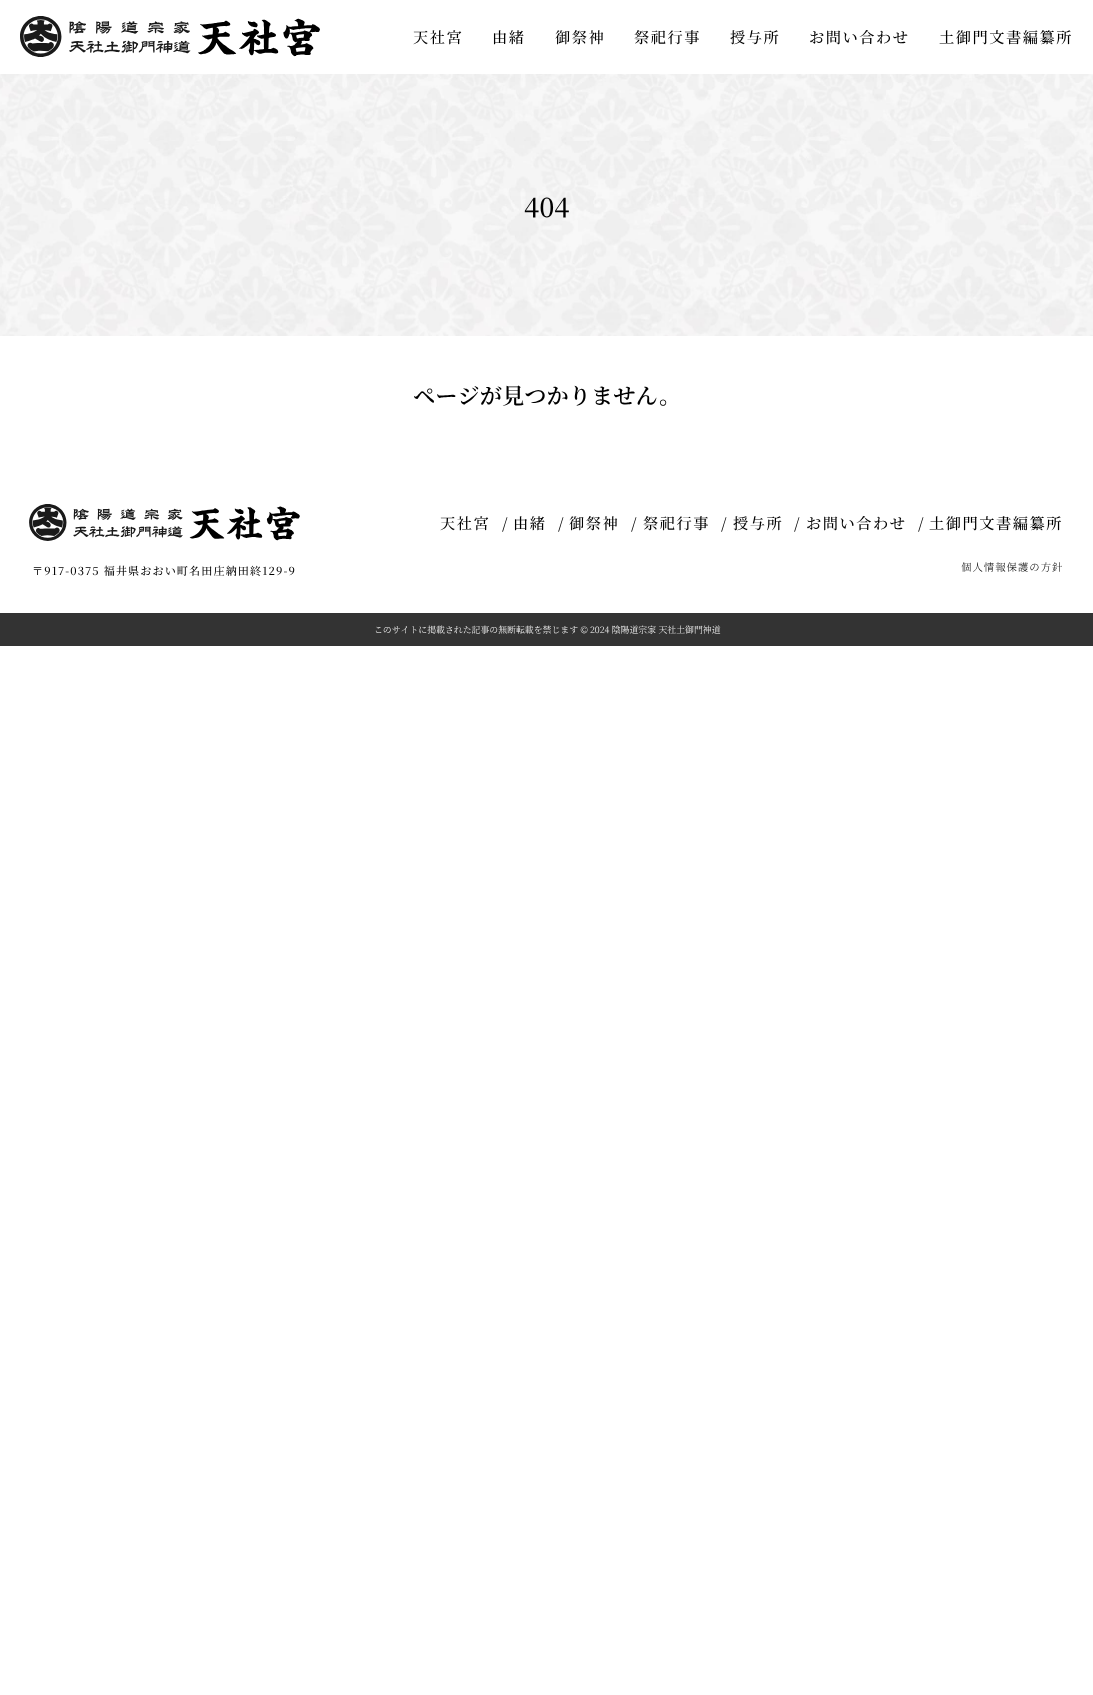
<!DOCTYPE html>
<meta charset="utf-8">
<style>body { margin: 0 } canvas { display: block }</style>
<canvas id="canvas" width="1093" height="1695"></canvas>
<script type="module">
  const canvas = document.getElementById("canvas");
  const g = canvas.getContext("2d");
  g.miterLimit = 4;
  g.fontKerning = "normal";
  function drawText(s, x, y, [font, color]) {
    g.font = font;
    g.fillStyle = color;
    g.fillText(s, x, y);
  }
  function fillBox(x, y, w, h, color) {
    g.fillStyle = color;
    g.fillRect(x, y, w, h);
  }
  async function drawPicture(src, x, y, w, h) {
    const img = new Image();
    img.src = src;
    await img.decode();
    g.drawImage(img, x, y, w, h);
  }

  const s1 = ["500 15.25px Noto Serif JP", "#000000"];
  const s2 = ["500 27px Noto Serif JP", "#000000"];
  const s3 = ["600 22.25px Noto Serif JP", "#000000"];
  const s4 = ["500 11.1px Noto Serif JP", "#000000"];
  const s5 = ["300 10.4px Noto Serif JP", "#000000"];
  const s6 = ["300 8.9px Noto Serif JP", "#FFFFFF"];

  fillBox(0, 0, 1093, 1695, "#FFFFFF");
  await drawPicture("pic1.png", 20, 16, 300, 41);
  g.letterSpacing = "1.5px";
  drawText("天社宮", 413, 43, s1);
  drawText("由緒", 492, 43, s1);
  drawText("御祭神", 555, 43, s1);
  drawText("祭祀行事", 634, 43, s1);
  drawText("授与所", 730, 43, s1);
  drawText("お問い合わせ", 809, 43, s1);
  drawText("土御門文書編纂所", 939, 43, s1);
  await drawPicture("pic2.png", 0, 74, 1093, 262);
  g.letterSpacing = "0px";
  drawText("404", 524, 217, s2);
  drawText("ページが見つかりません。", 413, 404, s3);
  await drawPicture("pic3.png", 29, 504, 271, 37);
  g.letterSpacing = "1.1px";
  drawText("〒917-0375 福井県おおい町名田庄納田終129-9", 32, 575, s4);
  g.letterSpacing = "1.5px";
  drawText("天社宮", 440, 529, s1);
  drawText("/", 502, 529, s1);
  drawText("由緒", 513, 529, s1);
  drawText("/", 558, 529, s1);
  drawText("御祭神", 569, 529, s1);
  drawText("/", 631, 529, s1);
  drawText("祭祀行事", 643, 529, s1);
  drawText("/", 721, 529, s1);
  drawText("授与所", 733, 529, s1);
  drawText("/", 794, 529, s1);
  drawText("お問い合わせ", 806, 529, s1);
  drawText("/", 918, 529, s1);
  drawText("土御門文書編纂所", 929, 529, s1);
  g.letterSpacing = "1px";
  drawText("個人情報保護の方針", 961, 571, s5);
  fillBox(0, 613, 1093, 33, "#333333");
  g.letterSpacing = "0px";
  drawText("このサイトに掲載された記事の無断転載を禁じます ©︎ 2024 陰陽道宗家 天社土御門神道", 374, 633, s6);
</script>
